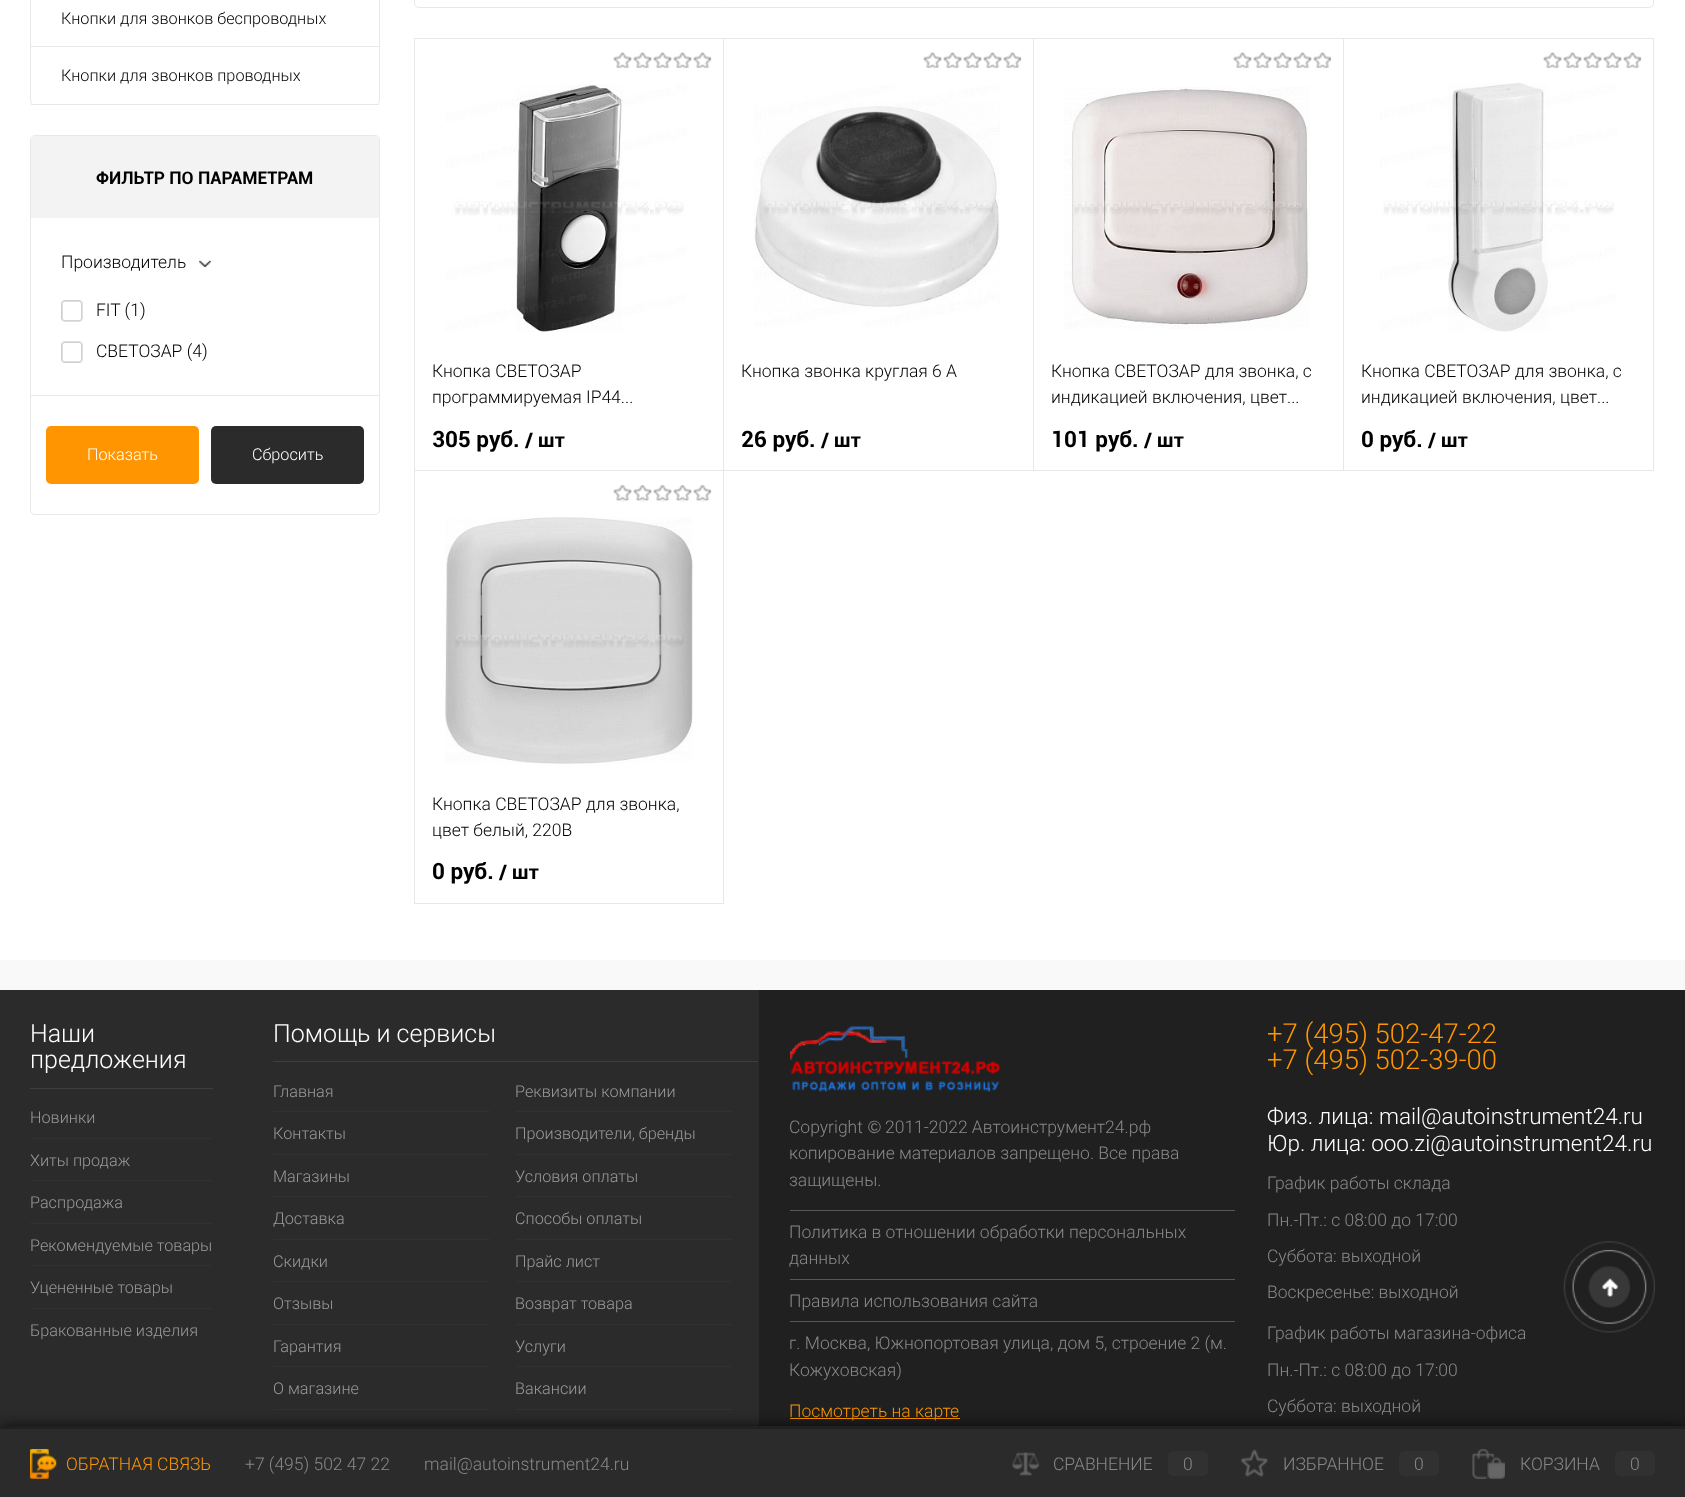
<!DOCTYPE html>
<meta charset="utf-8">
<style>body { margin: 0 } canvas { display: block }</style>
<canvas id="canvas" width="1685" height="1497"></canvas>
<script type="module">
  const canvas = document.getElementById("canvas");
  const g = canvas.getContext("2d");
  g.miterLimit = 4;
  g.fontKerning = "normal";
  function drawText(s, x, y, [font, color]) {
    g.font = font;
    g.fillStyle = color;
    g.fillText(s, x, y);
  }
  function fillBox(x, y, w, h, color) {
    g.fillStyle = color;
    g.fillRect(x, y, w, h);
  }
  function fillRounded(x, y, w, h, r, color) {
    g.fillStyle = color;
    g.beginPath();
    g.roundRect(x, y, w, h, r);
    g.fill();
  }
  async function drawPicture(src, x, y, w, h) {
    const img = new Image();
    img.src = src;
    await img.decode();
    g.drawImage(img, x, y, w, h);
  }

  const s1 = ["300 16.25px Roboto", "#000000"];
  const s2 = ["bold 17.5px Roboto", "#000000"];
  const s3 = ["300 17.5px Roboto", "#000000"];
  const s4 = ["300 16.25px Roboto", "#FFFFFF"];
  const s5 = ["bold 22.5px Roboto", "#000000"];
  const s6 = ["bold 20px Roboto", "#000000"];
  const s7 = ["300 25px Roboto", "#FFFFFF"];
  const s8 = ["300 16.25px Roboto", "#999999"];
  const s9 = ["300 17.5px Roboto", "#888888"];
  const s10 = ["17.5px Liberation Sans", "#888888"];
  const s11 = ["300 17.5px Roboto", "#FF9601"];
  const s12 = ["300 27.5px Roboto", "#FF9601"];
  const s13 = ["300 22.5px Roboto", "#FFFFFF"];

  fillBox(0, 0, 1685, 1497, "#FFFFFF");
  g.fillStyle = "#E7E8EA";
  g.beginPath();
  g.moveTo(35, -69);
  g.lineTo(375, -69);
  g.bezierCurveTo(378, -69, 380, -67, 380, -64);
  g.lineTo(380, 100);
  g.bezierCurveTo(380, 103, 378, 105, 375, 105);
  g.lineTo(35, 105);
  g.bezierCurveTo(32, 105, 30, 103, 30, 100);
  g.lineTo(30, -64);
  g.bezierCurveTo(30, -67, 32, -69, 35, -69);
  g.closePath();
  g.moveTo(35, -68);
  g.lineTo(375, -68);
  g.bezierCurveTo(377, -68, 379, -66, 379, -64);
  g.lineTo(379, 100);
  g.bezierCurveTo(379, 103, 377, 105, 375, 105);
  g.lineTo(35, 105);
  g.bezierCurveTo(33, 105, 31, 103, 31, 100);
  g.lineTo(31, -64);
  g.bezierCurveTo(31, -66, 33, -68, 35, -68);
  g.closePath();
  g.fill("evenodd");
  fillBox(31, 46, 348, 1, "#E7E8EA");
  drawText("Кнопки для звонков беспроводных", 61, 24, s1);
  fillBox(31, 104, 348, 1, "#E7E8EA");
  drawText("Кнопки для звонков проводных", 61, 81, s1);
  g.beginPath();
  g.roundRect(30.5, 135.5, 349, 379, 4.5);
  g.strokeStyle = "#E7E8EA";
  g.stroke();
  fillBox(31, 136, 348, 82, "#F3F3F3");
  drawText("ФИЛЬТР ПО ПАРАМЕТРАМ", 96, 184, s2);
  fillBox(31, 395, 348, 1, "#E7E8EA");
  drawText("Производитель", 61, 268, s3);
  await drawPicture("pic1.png", 199, 260, 12, 8);
  await drawPicture("pic2.png", 61, 300, 22, 22);
  drawText("FIT (1)", 96, 316, s3);
  await drawPicture("pic3.png", 61, 341, 22, 22);
  drawText("СВЕТОЗАР (4)", 96, 357, s3);
  fillRounded(46, 426, 153, 58, 5, "#FF9601");
  drawText("Показать", 87, 460, s4);
  fillRounded(211, 426, 153, 58, 5, "#2B2B2B");
  drawText("Сбросить", 252, 460, s4);
  g.beginPath();
  g.roundRect(414.5, -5.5, 1239, 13, 4.5);
  g.stroke();
  g.strokeRect(414.5, 38.5, 309, 432);
  await drawPicture("pic4.png", 613, 52, 99, 17);
  await drawPicture("pic5.png", 445, 84, 242, 248);
  drawText("Кнопка СВЕТОЗАР", 432, 377, s3);
  drawText("программируемая IP44...", 432, 403, s3);
  drawText("305 руб.", 432, 447, s5);
  drawText("/ шт", 525, 447, s6);
  fillBox(724, 38, 930, 1, "#E7E8EA");
  fillBox(1033, 38, 1, 433, "#E7E8EA");
  fillBox(724, 470, 310, 1, "#E7E8EA");
  await drawPicture("pic6.png", 923, 52, 99, 17);
  await drawPicture("pic7.png", 754, 85, 246, 242);
  drawText("Кнопка звонка круглая 6 А", 741, 377, s3);
  drawText("26 руб.", 741, 447, s5);
  drawText("/ шт", 821, 447, s6);
  fillBox(1343, 38, 1, 433, "#E7E8EA");
  fillBox(1034, 470, 310, 1, "#E7E8EA");
  await drawPicture("pic8.png", 1233, 52, 99, 17);
  await drawPicture("pic9.png", 1064, 87, 246, 242);
  drawText("Кнопка СВЕТОЗАР для звонка, с", 1051, 377, s3);
  drawText("индикацией включения, цвет...", 1051, 403, s3);
  drawText("101 руб.", 1051, 447, s5);
  drawText("/ шт", 1144, 447, s6);
  fillBox(1653, 38, 1, 433, "#E7E8EA");
  fillBox(1344, 470, 310, 1, "#E7E8EA");
  await drawPicture("pic10.png", 1543, 52, 99, 17);
  await drawPicture("pic11.png", 1380, 82, 237, 250);
  drawText("Кнопка СВЕТОЗАР для звонка, с", 1361, 377, s3);
  drawText("индикацией включения, цвет...", 1361, 403, s3);
  drawText("0 руб.", 1361, 447, s5);
  drawText("/ шт", 1428, 447, s6);
  fillBox(723, 471, 1, 433, "#E7E8EA");
  fillBox(414, 903, 310, 1, "#E7E8EA");
  fillBox(414, 471, 1, 433, "#E7E8EA");
  await drawPicture("pic12.png", 613, 485, 99, 17);
  await drawPicture("pic13.png", 445, 517, 248, 247);
  drawText("Кнопка СВЕТОЗАР для звонка,", 432, 810, s3);
  drawText("цвет белый, 220В", 432, 836, s3);
  drawText("0 руб.", 432, 879, s5);
  drawText("/ шт", 499, 879, s6);
  fillBox(0, 960, 1685, 30, "#F9F9F9");
  fillBox(0, 990, 759, 436, "#2B2B2B");
  fillBox(30, 1088, 183, 1, "#3E3E3E");
  drawText("Наши", 30, 1042, s7);
  drawText("предложения", 30, 1068, s7);
  drawText("Новинки", 30, 1123, s8);
  fillBox(30, 1138, 183, 1, "#313131");
  drawText("Хиты продаж", 30, 1166, s8);
  fillBox(30, 1180, 183, 1, "#313131");
  drawText("Распродажа", 30, 1208, s8);
  fillBox(30, 1223, 183, 1, "#313131");
  drawText("Рекомендуемые товары", 30, 1251, s8);
  fillBox(30, 1265, 183, 1, "#313131");
  drawText("Уцененные товары", 30, 1293, s8);
  fillBox(30, 1308, 183, 1, "#313131");
  drawText("Бракованные изделия", 30, 1336, s8);
  fillBox(273, 1061, 485, 1, "#3E3E3E");
  drawText("Помощь и сервисы", 273, 1042, s7);
  drawText("Главная", 273, 1097, s8);
  fillBox(273, 1111, 217, 1, "#313131");
  drawText("Контакты", 273, 1139, s8);
  fillBox(273, 1154, 217, 1, "#313131");
  drawText("Магазины", 273, 1182, s8);
  fillBox(273, 1196, 217, 1, "#313131");
  drawText("Доставка", 273, 1224, s8);
  fillBox(273, 1239, 217, 1, "#313131");
  drawText("Скидки", 273, 1267, s8);
  fillBox(273, 1281, 217, 1, "#313131");
  drawText("Отзывы", 273, 1309, s8);
  fillBox(273, 1324, 217, 1, "#313131");
  drawText("Гарантия", 273, 1352, s8);
  fillBox(273, 1366, 217, 1, "#313131");
  drawText("О магазине", 273, 1394, s8);
  fillBox(273, 1409, 217, 1, "#313131");
  drawText("Реквизиты компании", 515, 1097, s8);
  fillBox(515, 1111, 218, 1, "#313131");
  drawText("Производители, бренды", 515, 1139, s8);
  fillBox(515, 1154, 218, 1, "#313131");
  drawText("Условия оплаты", 515, 1182, s8);
  fillBox(515, 1196, 218, 1, "#313131");
  drawText("Способы оплаты", 515, 1224, s8);
  fillBox(515, 1239, 218, 1, "#313131");
  drawText("Прайс лист", 515, 1267, s8);
  fillBox(515, 1281, 218, 1, "#313131");
  drawText("Возврат товара", 515, 1309, s8);
  fillBox(515, 1324, 218, 1, "#313131");
  drawText("Услуги", 515, 1352, s8);
  fillBox(515, 1366, 218, 1, "#313131");
  drawText("Вакансии", 515, 1394, s8);
  fillBox(515, 1409, 218, 1, "#313131");
  fillBox(759, 990, 926, 436, "#202020");
  await drawPicture("pic14.png", 790, 1026, 211, 66);
  drawText("Copyright", 789, 1133, s9);
  drawText("©", 868, 1133, s10);
  drawText("2011-2022 Автоинструмент24.рф", 885, 1133, s9);
  drawText("копирование материалов запрещено. Все права", 789, 1159, s9);
  drawText("защищены.", 789, 1186, s9);
  fillBox(790, 1210, 445, 1, "#575757");
  drawText("Политика в отношении обработки персональных", 789, 1238, s9);
  drawText("данных", 789, 1264, s9);
  fillBox(790, 1279, 445, 1, "#575757");
  drawText("Правила использования сайта", 789, 1307, s9);
  fillBox(790, 1321, 445, 1, "#575757");
  drawText("г. Москва, Южнопортовая улица, дом 5, строение 2 (м.", 789, 1349, s9);
  drawText("Кожуховская)", 789, 1376, s9);
  fillBox(790, 1418, 170, 1, "#FF9601");
  drawText("Посмотреть на карте", 789, 1417, s11);
  drawText("+7 (495) 502-47-22", 1267, 1043, s12);
  drawText("+7 (495) 502-39-00", 1267, 1069, s12);
  drawText("Физ. лица: mail@autoinstrument24.ru", 1267, 1124, s13);
  drawText("Юр. лица: ooo.zi@autoinstrument24.ru", 1267, 1151, s13);
  drawText("График работы склада", 1267, 1189, s9);
  drawText("Пн.-Пт.: с 08:00 до 17:00", 1267, 1226, s9);
  drawText("Суббота: выходной", 1267, 1262, s9);
  drawText("Воскресенье: выходной", 1267, 1298, s9);
  drawText("График работы магазина-офиса", 1267, 1339, s9);
  drawText("Пн.-Пт.: с 08:00 до 17:00", 1267, 1376, s9);
  drawText("Суббота: выходной", 1267, 1412, s9);
  g.fillStyle = "#000000";
  g.filter = "blur(7.5px)";
  g.beginPath();
  g.rect(1, 1428, 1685, 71);
  g.fill();
  g.filter = "none";
  fillBox(0, 1429, 1685, 68, "#2B2B2B");
  fillBox(0, 1426, 1685, 3, "#202020");
  await drawPicture("pic15.png", 30, 1449, 27, 30);
  drawText("ОБРАТНАЯ СВЯЗЬ", 66, 1470, s11);
  drawText("+7 (495) 502 47 22", 245, 1470, s9);
  drawText("mail@autoinstrument24.ru", 424, 1470, s9);
  await drawPicture("pic16.png", 1012, 1452, 27, 24);
  drawText("СРАВНЕНИЕ", 1053, 1470, s9);
  fillRounded(1168, 1451, 40, 25, 5, "#313131");
  drawText("0", 1183, 1470, s9);
  await drawPicture("pic17.png", 1241, 1449, 27, 28);
  drawText("ИЗБРАННОЕ", 1283, 1470, s9);
  fillRounded(1399, 1451, 40, 25, 5, "#313131");
  drawText("0", 1414, 1470, s9);
  await drawPicture("pic18.png", 1472, 1449, 33, 30);
  drawText("КОРЗИНА", 1520, 1470, s9);
  fillRounded(1615, 1451, 40, 25, 5, "#313131");
  drawText("0", 1630, 1470, s9);
  await drawPicture("pic19.png", 1563, 1241, 92, 92);
</script>
